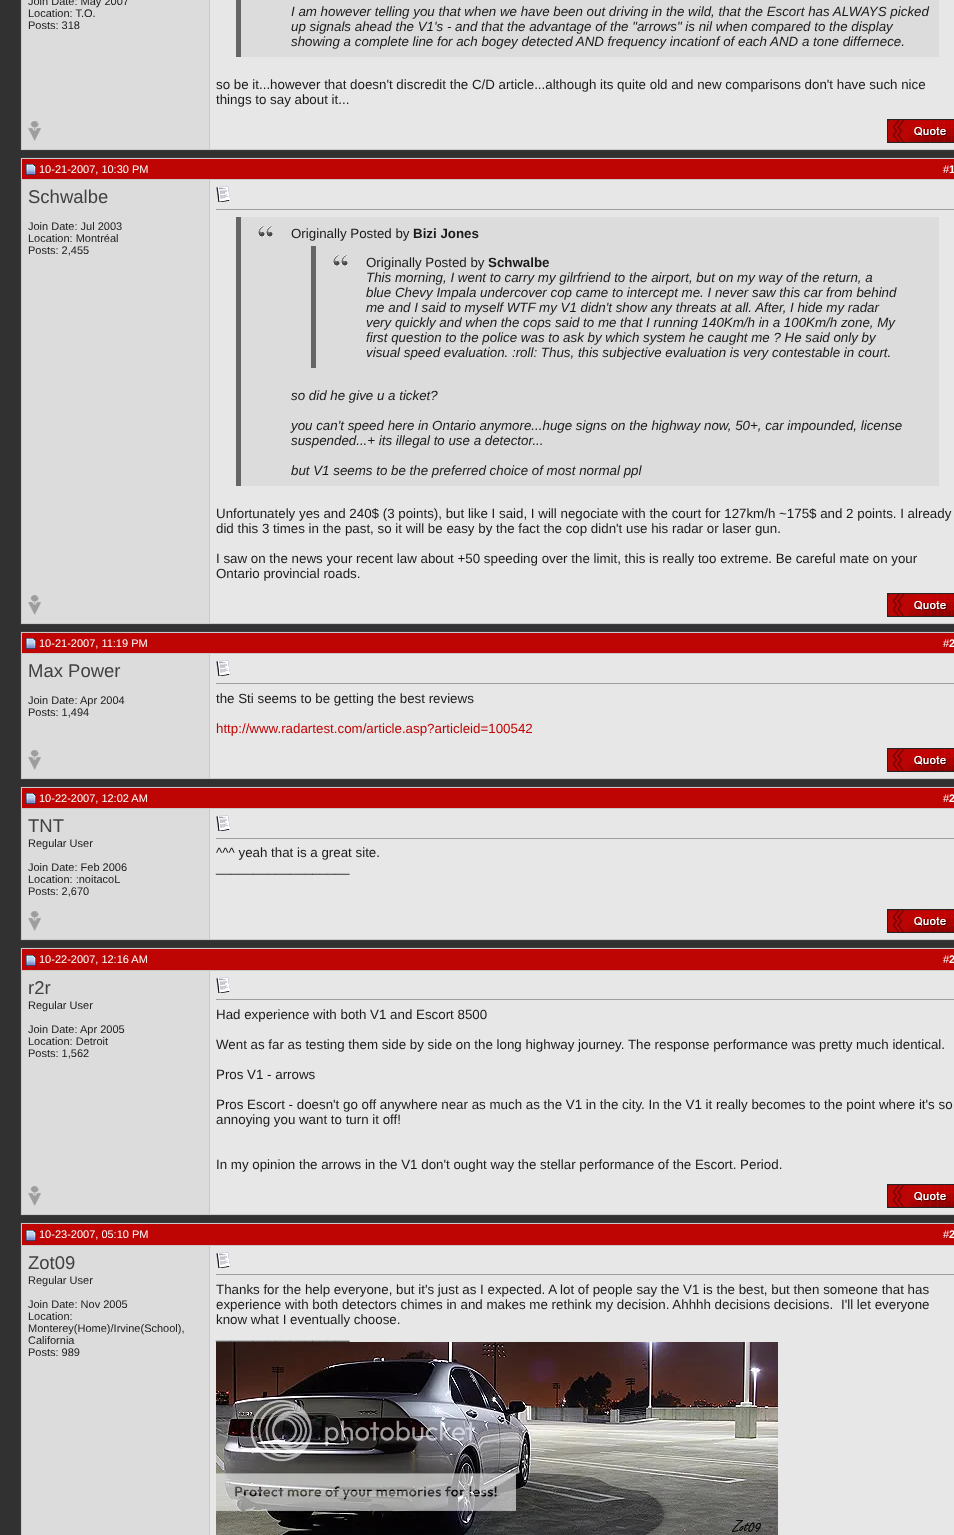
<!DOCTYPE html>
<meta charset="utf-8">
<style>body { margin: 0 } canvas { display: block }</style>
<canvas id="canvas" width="954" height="1535"></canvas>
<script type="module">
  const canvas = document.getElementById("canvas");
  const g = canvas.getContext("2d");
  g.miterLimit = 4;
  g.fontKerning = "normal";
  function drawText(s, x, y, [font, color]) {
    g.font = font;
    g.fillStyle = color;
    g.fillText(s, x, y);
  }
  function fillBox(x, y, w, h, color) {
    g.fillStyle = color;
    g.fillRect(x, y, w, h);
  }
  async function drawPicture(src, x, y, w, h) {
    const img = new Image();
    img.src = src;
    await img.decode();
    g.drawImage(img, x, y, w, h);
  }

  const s1 = ["11px Liberation Sans", "#1A1A1A"];
  const s2 = ["italic 13.33px Liberation Sans", "#1A1A1A"];
  const s3 = ["13.33px Liberation Sans", "#1A1A1A"];
  const s4 = ["11px Liberation Sans", "#FFFFFF"];
  const s5 = ["bold 11px Liberation Sans", "#FFFFFF"];
  const s6 = ["18.5px Liberation Sans", "#414141"];
  const s7 = ["bold 13.33px Liberation Sans", "#1A1A1A"];
  const s8 = ["13.33px Liberation Sans", "#BE0503"];

  fillBox(0, 0, 954, 1535, "#313131");
  g.strokeStyle = "#3B3A3F";
  g.strokeRect(20.5, -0.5, 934, 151);
  fillBox(22, 0, 187, 149, "#DCDCDC");
  fillBox(209, 0, 1, 150, "#C9C9C9");
  fillBox(21, 0, 1, 113, "#C9C9C9");
  drawText("Join Date: May 2007", 28, 5, s1);
  drawText("Location: T.O.", 28, 17, s1);
  drawText("Posts: 318", 28, 29, s1);
  fillBox(210, 0, 744, 149, "#E7E7E7");
  fillBox(241, 0, 698, 57, "#DCDCDC");
  fillBox(236, 0, 5, 57, "#666666");
  drawText("I am however telling you that when we have been out driving in the wild, that the Escort has ALWAYS picked", 291, 16, s2);
  drawText("up signals ahead the V1's - and that the advantage of the \"arrows\" is nil when compared to the display", 291, 31, s2);
  drawText("showing a complete line for ach bogey detected AND frequency incationf of each AND a tone differnece.", 291, 46, s2);
  drawText("so be it...however that doesn't discredit the C/D article...although its quite old and new comparisons don't have such nice", 216, 89, s3);
  drawText("things to say about it...", 216, 104, s3);
  fillBox(21, 149, 933, 1, "#C9C9C9");
  fillBox(21, 113, 1, 37, "#C9C9C9");
  await drawPicture("pic1.png", 28, 121, 13, 20);
  await drawPicture("pic2.png", 887, 119, 67, 24);
  g.strokeRect(20.5, 157.5, 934, 467);
  fillBox(22, 159, 932, 20, "#BE0503");
  fillBox(21, 158, 933, 1, "#C9C9C9");
  fillBox(21, 179, 933, 1, "#C9C9C9");
  fillBox(21, 158, 1, 429, "#C9C9C9");
  await drawPicture("pic3.png", 26, 164, 10, 11);
  drawText("10-21-2007, 10:30 PM", 39, 173, s4);
  drawText("#", 943, 173, s4);
  drawText("1", 949, 173, s5);
  fillBox(22, 180, 187, 443, "#DCDCDC");
  fillBox(209, 180, 1, 444, "#C9C9C9");
  drawText("Schwalbe", 28, 203, s6);
  drawText("Join Date: Jul 2003", 28, 230, s1);
  drawText("Location: Montréal", 28, 242, s1);
  drawText("Posts: 2,455", 28, 254, s1);
  fillBox(210, 180, 744, 443, "#E7E7E7");
  await drawPicture("pic4.png", 216, 186, 15, 16);
  fillBox(216, 209, 738, 1, "#9F9F9F");
  fillBox(241, 217, 698, 269, "#DCDCDC");
  await drawPicture("pic5.png", 258, 226, 15, 11);
  fillBox(236, 217, 5, 269, "#666666");
  drawText("Originally Posted by", 291, 238, s3);
  drawText("Bizi Jones", 413, 238, s7);
  await drawPicture("pic5.png", 333, 255, 15, 11);
  fillBox(311, 246, 5, 122, "#666666");
  drawText("Originally Posted by", 366, 267, s3);
  drawText("Schwalbe", 488, 267, s7);
  drawText("This morning, I went to carry my gilrfriend to the airport, but on my way of the return, a", 366, 282, s2);
  drawText("blue Chevy Impala undercover cop came to intercept me. I never saw this car from behind", 366, 297, s2);
  drawText("me and I said to myself WTF my V1 didn't show any threats at all. After, I hide my radar", 366, 312, s2);
  drawText("very quickly and when the cops said to me that I running 140Km/h in a 100Km/h zone, My", 366, 327, s2);
  drawText("first question to the police was to ask by which system he caught me ? He said only by", 366, 342, s2);
  drawText("visual speed evaluation. :roll: Thus, this subjective evaluation is very contestable in court.", 366, 357, s2);
  drawText("so did he give u a ticket?", 291, 400, s2);
  drawText("you can't speed here in Ontario anymore...huge signs on the highway now, 50+, car impounded, license", 291, 430, s2);
  drawText("suspended...+ its illegal to use a detector...", 291, 445, s2);
  drawText("but V1 seems to be the preferred choice of most normal ppl", 291, 475, s2);
  drawText("Unfortunately yes and 240$ (3 points), but like I said, I will negociate with the court for 127km/h ~175$ and 2 points. I already", 216, 518, s3);
  drawText("did this 3 times in the past, so it will be easy by the fact the cop didn't use his radar or laser gun.", 216, 533, s3);
  drawText("I saw on the news your recent law about +50 speeding over the limit, this is really too extreme. Be careful mate on your", 216, 563, s3);
  drawText("Ontario provincial roads.", 216, 578, s3);
  fillBox(21, 623, 933, 1, "#C9C9C9");
  fillBox(21, 587, 1, 37, "#C9C9C9");
  await drawPicture("pic1.png", 28, 595, 13, 20);
  await drawPicture("pic2.png", 887, 593, 67, 24);
  g.strokeRect(20.5, 631.5, 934, 148);
  fillBox(22, 633, 932, 20, "#BE0503");
  fillBox(21, 632, 933, 1, "#C9C9C9");
  fillBox(21, 653, 933, 1, "#C9C9C9");
  fillBox(21, 632, 1, 110, "#C9C9C9");
  await drawPicture("pic3.png", 26, 638, 10, 11);
  drawText("10-21-2007, 11:19 PM", 39, 647, s4);
  drawText("#", 943, 647, s4);
  drawText("2", 949, 647, s5);
  fillBox(22, 654, 187, 124, "#DCDCDC");
  fillBox(209, 654, 1, 125, "#C9C9C9");
  drawText("Max Power", 28, 677, s6);
  drawText("Join Date: Apr 2004", 28, 704, s1);
  drawText("Posts: 1,494", 28, 716, s1);
  fillBox(210, 654, 744, 124, "#E7E7E7");
  await drawPicture("pic4.png", 216, 660, 15, 16);
  fillBox(216, 683, 738, 1, "#9F9F9F");
  drawText("the Sti seems to be getting the best reviews", 216, 703, s3);
  drawText("http://www.radartest.com/article.asp?articleid=100542", 216, 733, s8);
  fillBox(21, 778, 933, 1, "#C9C9C9");
  fillBox(21, 742, 1, 37, "#C9C9C9");
  await drawPicture("pic1.png", 28, 750, 13, 20);
  await drawPicture("pic2.png", 887, 748, 67, 24);
  g.strokeRect(20.5, 786.5, 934, 154);
  fillBox(22, 788, 932, 20, "#BE0503");
  fillBox(21, 787, 933, 1, "#C9C9C9");
  fillBox(21, 808, 933, 1, "#C9C9C9");
  fillBox(21, 787, 1, 116, "#C9C9C9");
  await drawPicture("pic3.png", 26, 793, 10, 11);
  drawText("10-22-2007, 12:02 AM", 39, 802, s4);
  drawText("#", 943, 802, s4);
  drawText("2", 949, 802, s5);
  fillBox(22, 809, 187, 130, "#DCDCDC");
  fillBox(209, 809, 1, 131, "#C9C9C9");
  drawText("TNT", 28, 832, s6);
  drawText("Regular User", 28, 847, s1);
  drawText("Join Date: Feb 2006", 28, 871, s1);
  drawText("Location: :noitacoL", 28, 883, s1);
  drawText("Posts: 2,670", 28, 895, s1);
  fillBox(210, 809, 744, 130, "#E7E7E7");
  await drawPicture("pic4.png", 216, 815, 15, 16);
  fillBox(216, 838, 738, 1, "#9F9F9F");
  drawText("^^^ yeah that is a great site.", 216, 857, s3);
  drawText("__________________", 216, 872, s3);
  fillBox(21, 939, 933, 1, "#C9C9C9");
  fillBox(21, 903, 1, 37, "#C9C9C9");
  await drawPicture("pic1.png", 28, 911, 13, 20);
  await drawPicture("pic2.png", 887, 909, 67, 24);
  g.strokeRect(20.5, 947.5, 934, 268);
  fillBox(22, 949, 932, 21, "#BE0503");
  fillBox(21, 948, 933, 1, "#C9C9C9");
  fillBox(21, 970, 933, 1, "#C9C9C9");
  fillBox(21, 948, 1, 230, "#C9C9C9");
  await drawPicture("pic3.png", 26, 955, 10, 11);
  drawText("10-22-2007, 12:16 AM", 39, 963, s4);
  drawText("#", 943, 963, s4);
  drawText("2", 949, 963, s5);
  fillBox(22, 971, 187, 243, "#DCDCDC");
  fillBox(209, 971, 1, 244, "#C9C9C9");
  drawText("r2r", 28, 994, s6);
  drawText("Regular User", 28, 1009, s1);
  drawText("Join Date: Apr 2005", 28, 1033, s1);
  drawText("Location: Detroit", 28, 1045, s1);
  drawText("Posts: 1,562", 28, 1057, s1);
  fillBox(210, 971, 744, 243, "#E7E7E7");
  await drawPicture("pic4.png", 216, 977, 15, 16);
  fillBox(216, 999, 738, 1, "#9F9F9F");
  drawText("Had experience with both V1 and Escort 8500", 216, 1019, s3);
  drawText("Went as far as testing them side by side on the long highway journey. The response performance was pretty much identical.", 216, 1049, s3);
  drawText("Pros V1 - arrows", 216, 1079, s3);
  drawText("Pros Escort - doesn't go off anywhere near as much as the V1 in the city. In the V1 it really becomes to the point where it's so", 216, 1109, s3);
  drawText("annoying you want to turn it off!", 216, 1124, s3);
  drawText("In my opinion the arrows in the V1 don't ought way the stellar performance of the Escort. Period.", 216, 1169, s3);
  fillBox(21, 1214, 933, 1, "#C9C9C9");
  fillBox(21, 1178, 1, 37, "#C9C9C9");
  await drawPicture("pic1.png", 28, 1186, 13, 20);
  await drawPicture("pic2.png", 887, 1184, 67, 24);
  g.strokeRect(20.5, 1222.5, 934, 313);
  fillBox(22, 1224, 932, 21, "#BE0503");
  fillBox(21, 1223, 933, 1, "#C9C9C9");
  fillBox(21, 1245, 933, 1, "#C9C9C9");
  fillBox(21, 1223, 1, 312, "#C9C9C9");
  await drawPicture("pic3.png", 26, 1230, 10, 11);
  drawText("10-23-2007, 05:10 PM", 39, 1238, s4);
  drawText("#", 943, 1238, s4);
  drawText("2", 949, 1238, s5);
  fillBox(22, 1246, 187, 289, "#DCDCDC");
  fillBox(209, 1246, 1, 289, "#C9C9C9");
  drawText("Zot09", 28, 1269, s6);
  drawText("Regular User", 28, 1284, s1);
  drawText("Join Date: Nov 2005", 28, 1308, s1);
  drawText("Location:", 28, 1320, s1);
  drawText("Monterey(Home)/Irvine(School),", 28, 1332, s1);
  drawText("California", 28, 1344, s1);
  drawText("Posts: 989", 28, 1356, s1);
  fillBox(210, 1246, 744, 289, "#E7E7E7");
  await drawPicture("pic4.png", 216, 1252, 15, 16);
  fillBox(216, 1274, 738, 1, "#9F9F9F");
  drawText("Thanks for the help everyone, but it's just as I expected. A lot of people say the V1 is the best, but then someone that has", 216, 1294, s3);
  drawText("experience with both detectors chimes in and makes me rethink my decision. Ahhhh decisions decisions.", 216, 1309, s3);
  drawText("I'll let everyone", 841, 1309, s3);
  drawText("know what I eventually choose.", 216, 1324, s3);
  drawText("__________________", 216, 1339, s3);
  await drawPicture("pic6.png", 216, 1342, 562, 193);
</script>
